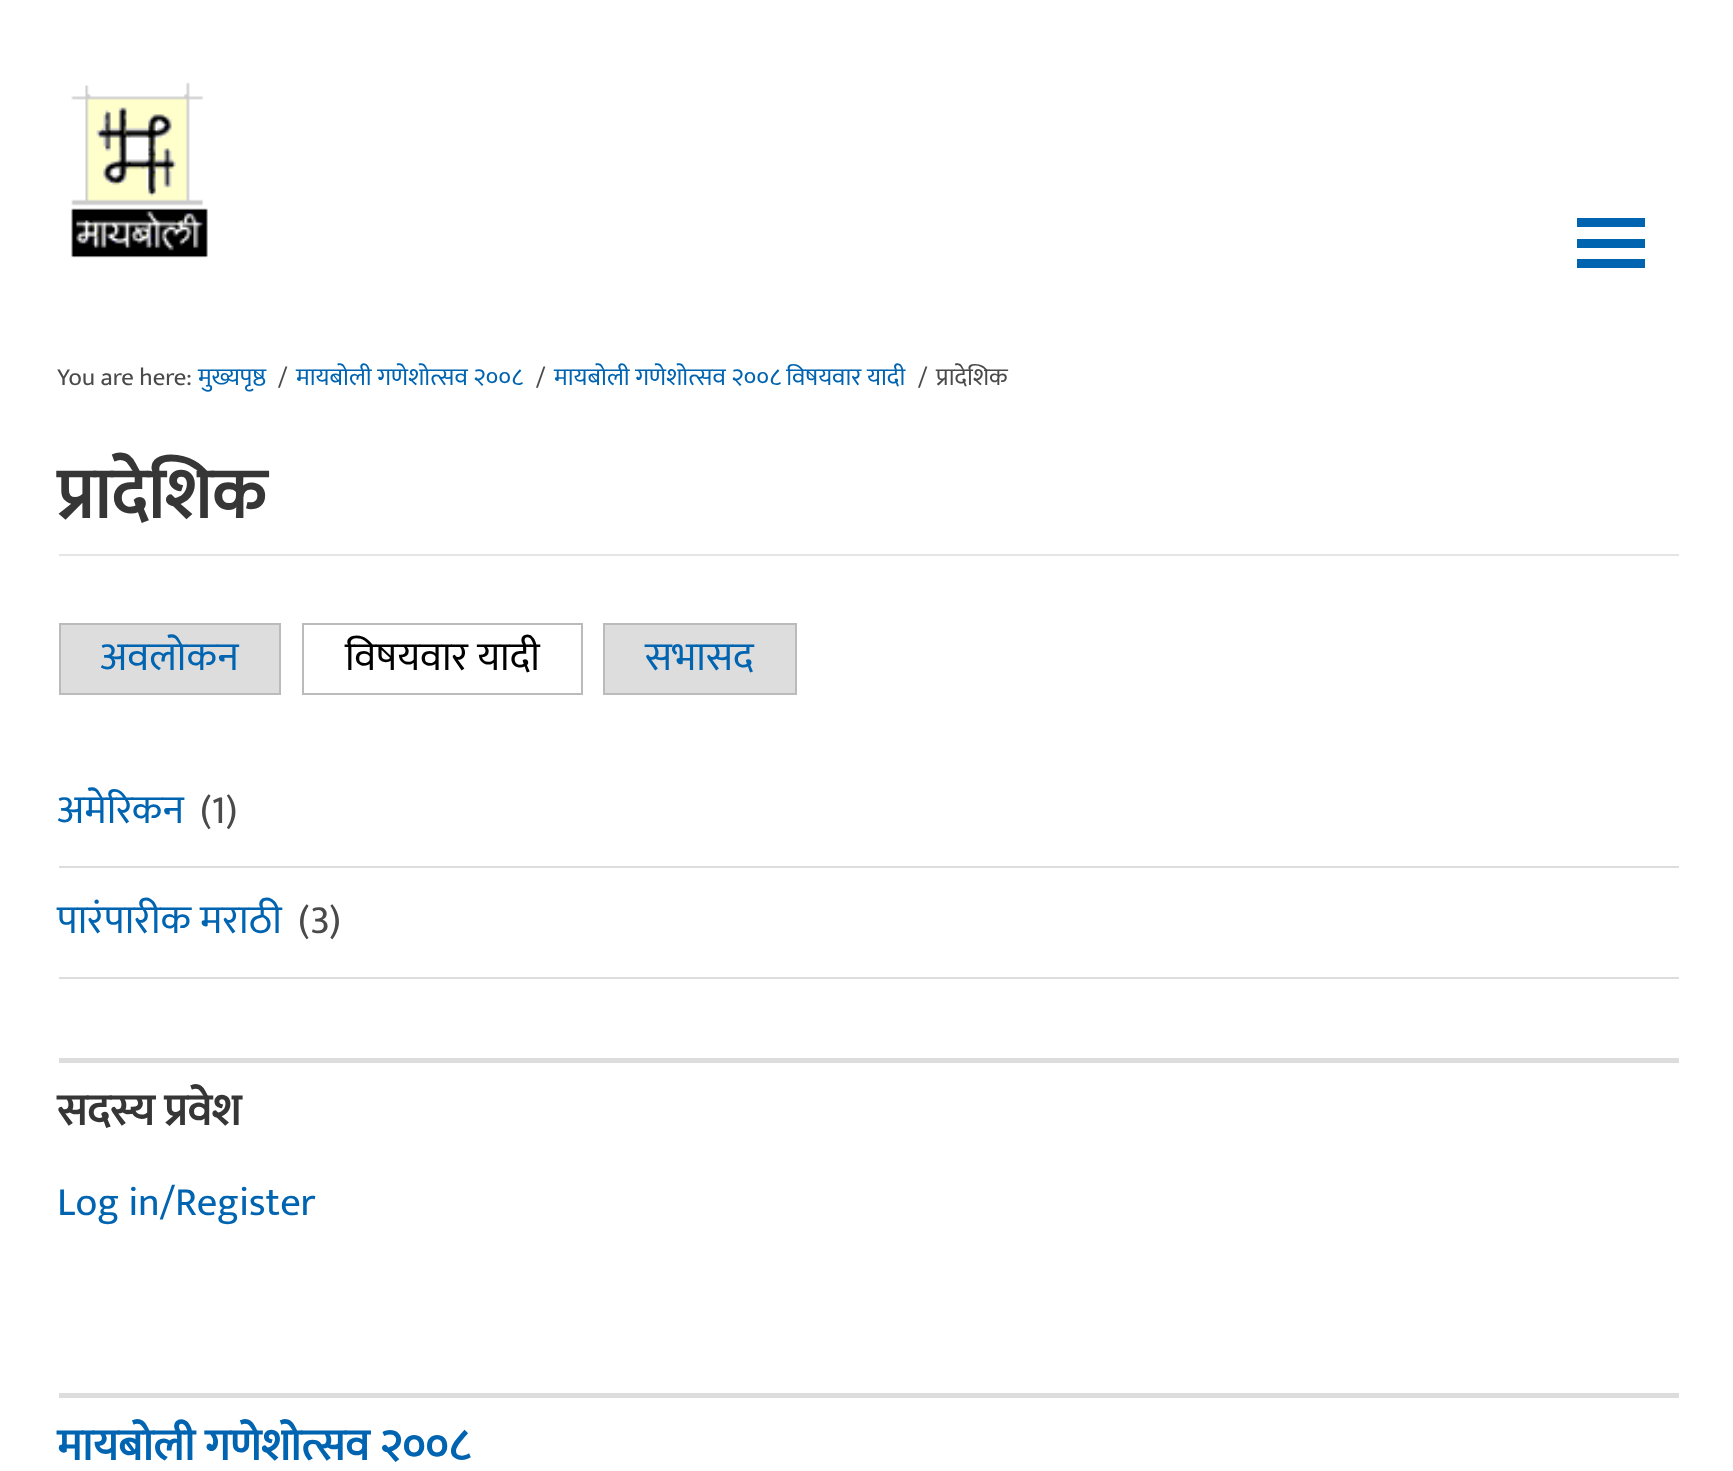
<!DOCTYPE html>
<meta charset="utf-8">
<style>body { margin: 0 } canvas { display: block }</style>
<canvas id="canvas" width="1733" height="1471"></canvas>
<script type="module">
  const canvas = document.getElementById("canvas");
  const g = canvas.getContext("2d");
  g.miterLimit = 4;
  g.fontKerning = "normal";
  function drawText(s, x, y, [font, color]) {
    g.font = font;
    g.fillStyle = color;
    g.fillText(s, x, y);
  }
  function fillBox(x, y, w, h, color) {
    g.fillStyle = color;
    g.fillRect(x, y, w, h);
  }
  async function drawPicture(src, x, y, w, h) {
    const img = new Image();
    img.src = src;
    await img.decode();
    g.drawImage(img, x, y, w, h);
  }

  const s1 = ["24.75px Ek Mukta", "#4A4A4A"];
  const s2 = ["24.75px Ek Mukta", "#0064B1"];
  const s3 = ["bold 72px Ek Mukta", "#363636"];
  const s4 = ["40.5px Ek Mukta", "#0064B1"];
  const s5 = ["40.5px Ek Mukta", "#000000"];
  const s6 = ["40.5px Ek Mukta", "#4A4A4A"];
  const s7 = ["bold 45px Ek Mukta", "#363636"];
  const s8 = ["bold 45px Ek Mukta", "#0064B1"];

  fillBox(0, 0, 1733, 1471, "#FFFFFF");
  await drawPicture("pic1.png", 71, 82, 137, 176);
  fillBox(1577, 218, 68, 9, "#0064B1");
  fillBox(1577, 239, 68, 9, "#0064B1");
  fillBox(1577, 259, 68, 9, "#0064B1");
  drawText("You are here:", 57, 385, s1);
  drawText("मुख्यपृष्ठ", 198, 385, s2);
  drawText("/", 278, 385, s1);
  drawText("मायबोली गणेशोत्सव २००८", 296, 385, s2);
  drawText("/", 536, 385, s1);
  drawText("मायबोली गणेशोत्सव २००८ विषयवार यादी", 554, 385, s2);
  drawText("/", 918, 385, s1);
  drawText("प्रादेशिक", 936, 385, s1);
  fillBox(59, 554, 1620, 2, "#E5E5E5");
  drawText("प्रादेशिक", 57, 518, s3);
  g.fillStyle = "#DDDDDD";
  g.beginPath();
  g.rect(60, 624, 220, 70);
  g.fill();
  g.strokeStyle = "#BBBBBB";
  g.lineWidth = 2;
  g.stroke();
  drawText("अवलोकन", 100, 670, s4);
  g.strokeRect(303, 624, 279, 70);
  drawText("विषयवार यादी", 345, 670, s5);
  g.fillStyle = "#DDDDDD";
  g.beginPath();
  g.rect(604, 624, 192, 70);
  g.fill();
  g.stroke();
  drawText("सभासद", 645, 670, s4);
  fillBox(59, 866, 1620, 2, "#DDDDDD");
  drawText("अमेरिकन", 57, 823, s4);
  drawText("(1)", 200, 823, s6);
  fillBox(59, 977, 1620, 2, "#DDDDDD");
  drawText("पारंपारीक मराठी", 57, 933, s4);
  drawText("(3)", 298, 933, s6);
  fillBox(59, 1058, 1620, 5, "#DDDDDD");
  drawText("सदस्य प्रवेश", 57, 1125, s7);
  drawText("Log in/Register", 57, 1215, s4);
  fillBox(59, 1393, 1620, 5, "#DDDDDD");
  drawText("मायबोली गणेशोत्सव २००८", 57, 1460, s8);
</script>
